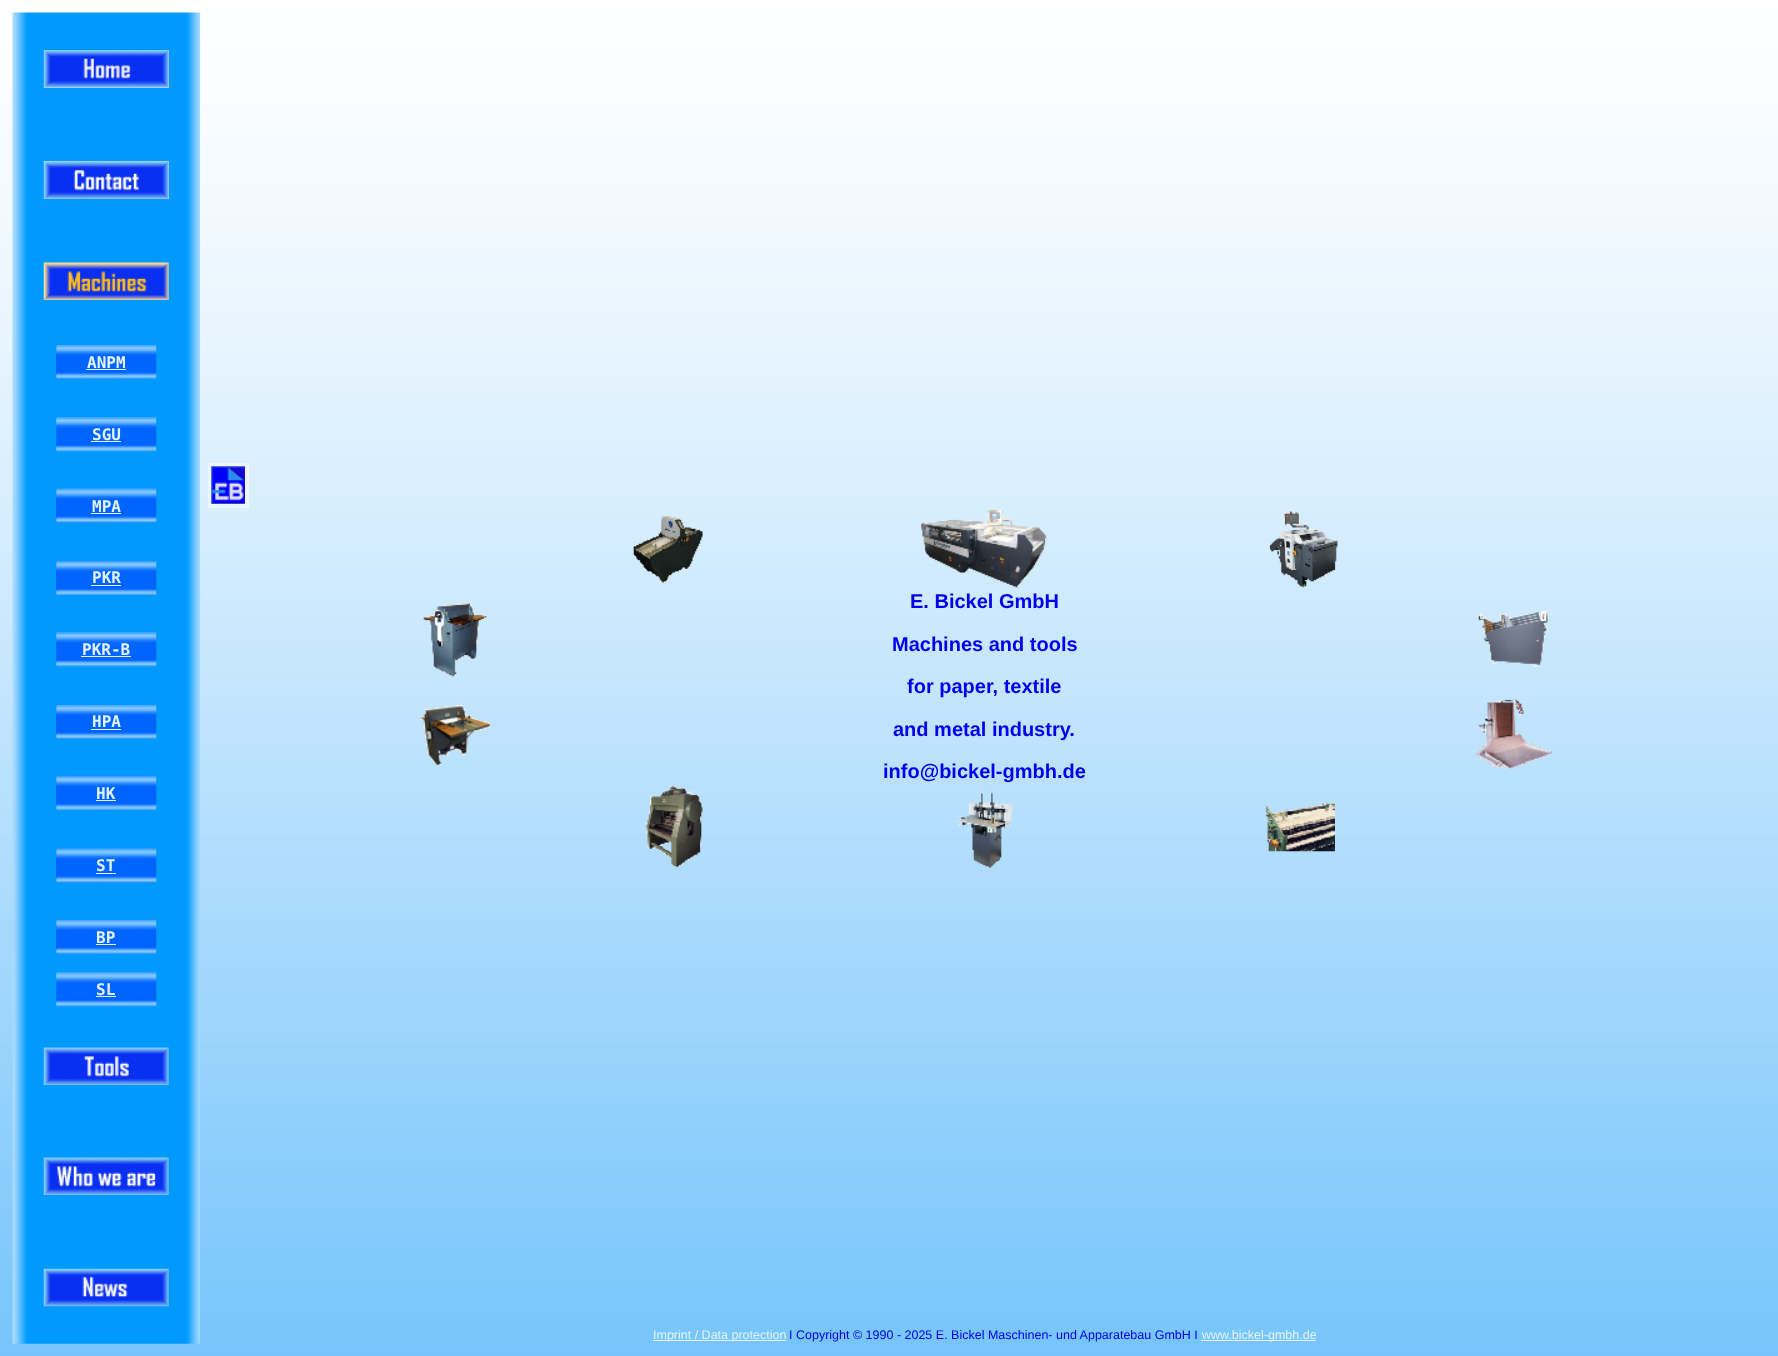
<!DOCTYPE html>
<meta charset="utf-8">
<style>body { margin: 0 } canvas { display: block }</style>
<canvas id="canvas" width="1778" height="1356"></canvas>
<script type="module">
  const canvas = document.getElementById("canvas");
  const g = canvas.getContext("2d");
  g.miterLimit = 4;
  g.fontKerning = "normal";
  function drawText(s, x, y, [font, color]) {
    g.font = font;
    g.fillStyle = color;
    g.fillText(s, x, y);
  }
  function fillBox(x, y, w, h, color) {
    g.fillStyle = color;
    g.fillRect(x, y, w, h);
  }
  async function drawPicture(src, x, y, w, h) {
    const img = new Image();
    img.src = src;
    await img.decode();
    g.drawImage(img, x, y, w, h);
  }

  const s1 = ["bold 16px DejaVu Sans Mono", "#E2F3FE"];
  const s2 = ["bold 20px Liberation Sans", "#0000EF"];
  const s3 = ["12.5px Liberation Sans", "#E2F3FE"];
  const s4 = ["12.5px Liberation Sans", "#0000EF"];

  fillBox(0, 0, 1778, 1356, "#FFFFFF");
  await drawPicture("pic1.png", 0, 0, 1778, 1356);
  await drawPicture("pic2.png", 12, 12, 188, 1332);
  fillBox(44, 50, 125, 38, "#DEDFDE");
  await drawPicture("pic3.png", 43, 50, 126, 38);
  fillBox(44, 161, 125, 38, "#DEDFDE");
  await drawPicture("pic4.png", 43, 161, 126, 38);
  await drawPicture("pic5.png", 43, 262, 126, 38);
  fillBox(56, 345, 100, 34, "#0065FF");
  await drawPicture("pic6.png", 56, 345, 101, 34);
  drawText("ANPM", 87, 368, s1);
  fillBox(86, 369, 40, 1, "#E2F3FE");
  await drawPicture("pic7.png", 56, 417, 101, 35);
  drawText("SGU", 92, 440, s1);
  fillBox(91, 441, 30, 1, "#E2F3FE");
  fillBox(56, 489, 100, 34, "#0065FF");
  await drawPicture("pic8.png", 56, 488, 101, 35);
  drawText("MPA", 92, 512, s1);
  fillBox(91, 513, 30, 1, "#E2F3FE");
  fillBox(56, 561, 100, 34, "#0065FF");
  await drawPicture("pic9.png", 56, 561, 101, 34);
  drawText("PKR", 92, 583, s1);
  fillBox(91, 585, 30, 1, "#E2F3FE");
  await drawPicture("pic10.png", 56, 632, 101, 35);
  drawText("PKR-B", 82, 655, s1);
  fillBox(81, 656, 50, 1, "#E2F3FE");
  fillBox(56, 705, 100, 34, "#0065FF");
  await drawPicture("pic6.png", 56, 705, 101, 34);
  drawText("HPA", 92, 727, s1);
  fillBox(91, 729, 30, 1, "#E2F3FE");
  fillBox(56, 776, 100, 34, "#0065FF");
  await drawPicture("pic11.png", 56, 776, 101, 34);
  drawText("HK", 96, 799, s1);
  fillBox(96, 800, 20, 1, "#E2F3FE");
  fillBox(56, 849, 100, 34, "#0065FF");
  await drawPicture("pic12.png", 56, 848, 101, 35);
  drawText("ST", 96, 871, s1);
  fillBox(96, 873, 20, 1, "#E2F3FE");
  fillBox(56, 920, 100, 34, "#0065FF");
  await drawPicture("pic13.png", 56, 920, 101, 34);
  drawText("BP", 96, 943, s1);
  fillBox(96, 944, 20, 1, "#E2F3FE");
  await drawPicture("pic14.png", 56, 972, 101, 35);
  drawText("SL", 96, 995, s1);
  fillBox(96, 996, 20, 1, "#E2F3FE");
  await drawPicture("pic15.png", 43, 1047, 126, 38);
  await drawPicture("pic16.png", 43, 1157, 126, 38);
  await drawPicture("pic17.png", 43, 1268, 126, 39);
  g.strokeStyle = "#EBF6FF";
  g.lineWidth = 4;
  g.strokeRect(210, 465, 37, 41);
  await drawPicture("pic18.png", 211, 466, 34, 38);
  await drawPicture("pic19.png", 633, 516, 70, 67);
  await drawPicture("pic20.png", 921, 510, 126, 78);
  await drawPicture("pic21.png", 1269, 511, 69, 77);
  await drawPicture("pic22.png", 423, 603, 64, 74);
  await drawPicture("pic23.png", 421, 705, 69, 60);
  drawText("E. Bickel GmbH", 910, 608, s2);
  drawText("Machines and tools", 892, 651, s2);
  drawText("for paper, textile", 907, 693, s2);
  drawText("and metal industry.", 893, 736, s2);
  drawText("info@bickel-gmbh.de", 883, 778, s2);
  await drawPicture("pic24.png", 1478, 611, 70, 56);
  await drawPicture("pic25.png", 1476, 698, 76, 71);
  await drawPicture("pic26.png", 646, 786, 57, 82);
  await drawPicture("pic27.png", 956, 791, 57, 77);
  await drawPicture("pic28.png", 1266, 802, 69, 50);
  fillBox(653, 1340, 133, 1, "#E2F3FE");
  drawText("Imprint / Data protection", 653, 1339, s3);
  drawText("I Copyright © 1990 - 2025 E. Bickel Maschinen- und Apparatebau GmbH I", 789, 1339, s4);
  fillBox(1201, 1340, 115, 1, "#E2F3FE");
  drawText("www.bickel-gmbh.de", 1202, 1339, s3);
</script>
